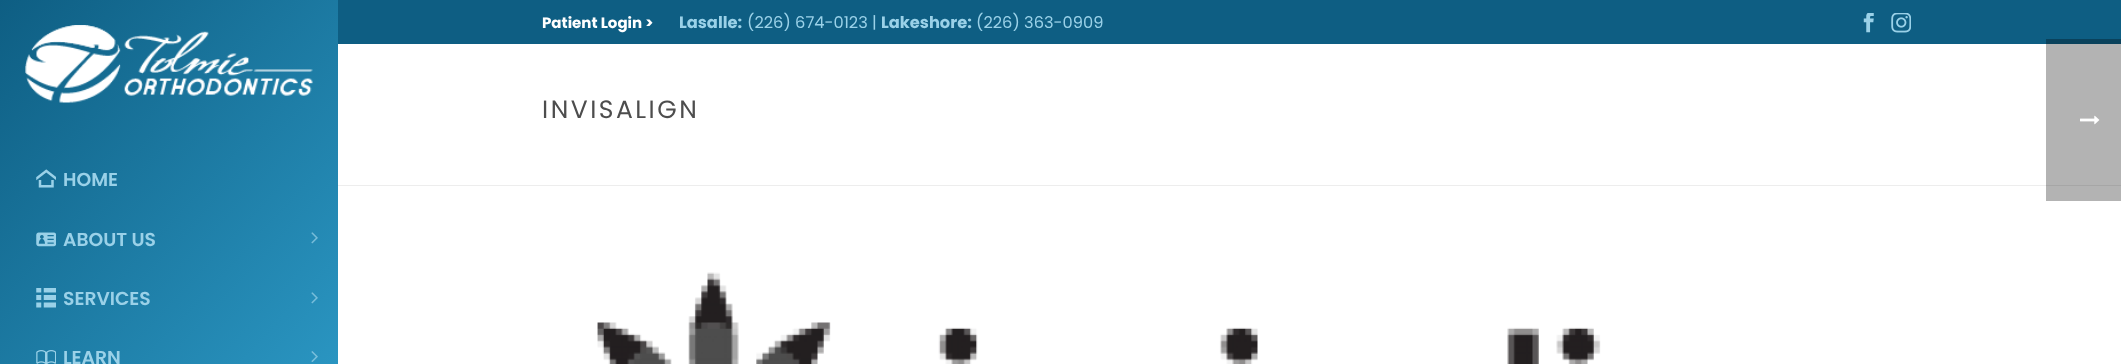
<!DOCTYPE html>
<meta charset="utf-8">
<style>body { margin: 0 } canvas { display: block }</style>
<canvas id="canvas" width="2121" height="364"></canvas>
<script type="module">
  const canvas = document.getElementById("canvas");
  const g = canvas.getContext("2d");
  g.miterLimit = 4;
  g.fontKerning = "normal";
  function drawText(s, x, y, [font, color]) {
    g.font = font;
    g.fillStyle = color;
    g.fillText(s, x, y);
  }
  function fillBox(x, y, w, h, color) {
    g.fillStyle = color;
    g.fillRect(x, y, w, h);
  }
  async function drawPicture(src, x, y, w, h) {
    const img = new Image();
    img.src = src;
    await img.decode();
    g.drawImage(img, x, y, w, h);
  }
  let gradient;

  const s1 = ["bold 15px Poppins", "#FFFFFF"];
  const s2 = ["bold 16.25px Poppins", "#9AD1E8"];
  const s3 = ["16.25px Poppins", "#9AD1E8"];
  const s4 = ["600 18.75px Poppins", "#9AD1E8"];
  const s5 = ["25px Poppins", "#4D4D4D"];

  fillBox(0, 0, 2121, 364, "#FFFFFF");
  fillBox(2046, 44, 75, 157, "#B3B3B3");
  fillBox(338, 185, 1708, 1, "#EDEDED");
  fillBox(2046, 185, 75, 1, "#A6A6A6");
  fillBox(338, 0, 1783, 44, "#0E5E83");
  fillBox(2046, 39, 75, 5, "#0A425C");
  drawText("Patient Login >", 542, 28, s1);
  drawText("Lasalle:", 679, 28, s2);
  drawText("(226) 674-0123 |", 747, 28, s3);
  drawText("Lakeshore:", 881, 28, s2);
  drawText("(226) 363-0909", 976, 28, s3);
  await drawPicture("pic1.png", 1863, 13, 11, 20);
  await drawPicture("pic2.png", 1891, 13, 20, 20);
  gradient = g.createLinearGradient(-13, 14, 351, 351);
  gradient.addColorStop(0, "#0E5E83");
  gradient.addColorStop(1, "#2A95C1");
  g.fillStyle = gradient;
  g.fillRect(0, 0, 338, 364);
  await drawPicture("pic3.png", 25, 25, 288, 78);
  await drawPicture("pic4.png", 36, 169, 20, 19);
  drawText("HOME", 63, 186, s4);
  await drawPicture("pic5.png", 36, 232, 20, 15);
  drawText("ABOUT US", 63, 246, s4);
  await drawPicture("pic6.png", 311, 232, 7, 12);
  await drawPicture("pic7.png", 36, 288, 20, 20);
  drawText("SERVICES", 63, 305, s4);
  await drawPicture("pic8.png", 311, 292, 7, 12);
  await drawPicture("pic9.png", 36, 350, 20, 14);
  drawText("LEARN", 63, 364, s4);
  await drawPicture("pic10.png", 311, 351, 7, 11);
  g.letterSpacing = "2.5px";
  drawText("INVISALIGN", 542, 118, s5);
  await drawPicture("pic11.png", 597, 272, 1004, 92);
  await drawPicture("pic12.png", 2080, 115, 20, 10);
</script>
